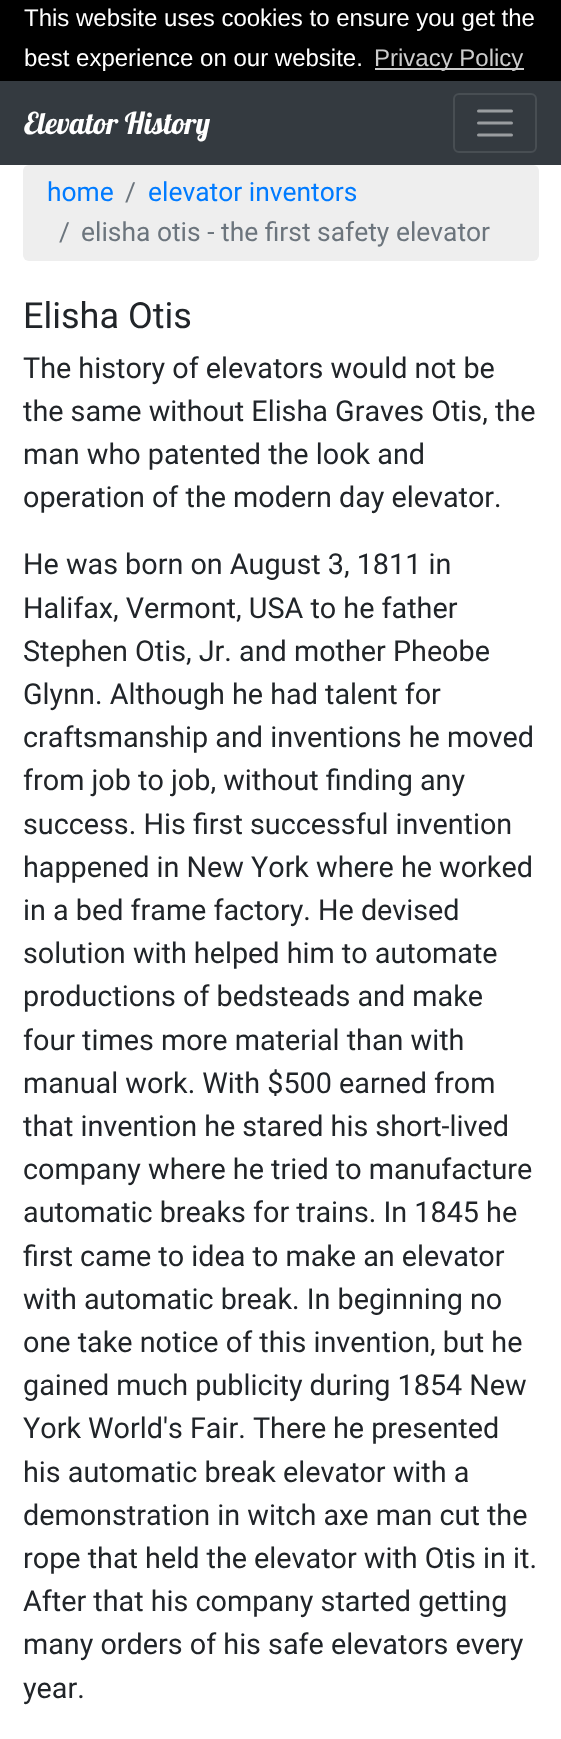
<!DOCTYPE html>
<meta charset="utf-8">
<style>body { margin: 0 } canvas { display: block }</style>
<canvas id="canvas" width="561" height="1739"></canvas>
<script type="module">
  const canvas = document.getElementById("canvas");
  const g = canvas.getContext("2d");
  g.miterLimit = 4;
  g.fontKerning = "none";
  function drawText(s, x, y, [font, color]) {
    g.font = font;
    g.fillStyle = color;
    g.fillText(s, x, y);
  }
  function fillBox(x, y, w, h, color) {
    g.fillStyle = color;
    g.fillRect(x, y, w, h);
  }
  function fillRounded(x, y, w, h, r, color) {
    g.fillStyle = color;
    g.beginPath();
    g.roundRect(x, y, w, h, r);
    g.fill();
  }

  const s1 = ["24px Liberation Sans", "#FFFFFF"];
  const s2 = ["24px Liberation Sans", "#CCCCCC"];
  const s3 = ["30px Lobster", "#FFFFFF"];
  const s4 = ["26.4px Roboto", "#007BFF"];
  const s5 = ["26.4px Roboto", "#6C757D"];
  const s6 = ["36px Roboto", "#212529"];
  const s7 = ["28.75px Roboto", "#212529"];

  fillBox(0, 0, 561, 1739, "#FFFFFF");
  fillBox(0, 0, 561, 81, "#000000");
  drawText("This website uses cookies to ensure you get the", 24, 26, s1);
  drawText("best experience on our website.", 24, 66, s1);
  fillBox(375, 68, 149, 2, "#CCCCCC");
  drawText("Privacy Policy", 374, 66, s2);
  fillBox(0, 81, 561, 84, "#343A40");
  drawText("Elevator History", 24, 134, s3);
  g.beginPath();
  g.roundRect(454, 94, 82, 58, 5);
  g.strokeStyle = "#484E53";
  g.lineWidth = 2;
  g.stroke();
  g.beginPath();
  g.moveTo(478.5, 111);
  g.lineTo(511.5, 111);
  g.moveTo(478.5, 123);
  g.lineTo(511.5, 123);
  g.moveTo(478.5, 135);
  g.lineTo(511.5, 135);
  g.strokeStyle = "#9A9DA0";
  g.lineWidth = 3;
  g.lineCap = "round";
  g.stroke();
  fillRounded(23, 165, 516, 96, 6, "#EEEEEE");
  drawText("home", 47, 201, s4);
  drawText("/", 125, 201, s5);
  drawText("elevator inventors", 148, 201, s4);
  drawText("/", 59, 241, s5);
  drawText("elisha otis - the first safety elevator", 81, 241, s5);
  drawText("Elisha Otis", 23, 328, s6);
  drawText("The history of elevators would not be", 23, 378, s7);
  drawText("the same without Elisha Graves Otis, the", 23, 421, s7);
  drawText("man who patented the look and", 23, 464, s7);
  drawText("operation of the modern day elevator.", 23, 507, s7);
  drawText("He was born on August 3, 1811 in", 23, 574, s7);
  drawText("Halifax, Vermont, USA to he father", 23, 618, s7);
  drawText("Stephen Otis, Jr. and mother Pheobe", 23, 661, s7);
  drawText("Glynn. Although he had talent for", 23, 704, s7);
  drawText("craftsmanship and inventions he moved", 23, 747, s7);
  drawText("from job to job, without finding any", 23, 790, s7);
  drawText("success. His first successful invention", 23, 834, s7);
  drawText("happened in New York where he worked", 23, 877, s7);
  drawText("in a bed frame factory. He devised", 23, 920, s7);
  drawText("solution with helped him to automate", 23, 963, s7);
  drawText("productions of bedsteads and make", 23, 1006, s7);
  drawText("four times more material than with", 23, 1050, s7);
  drawText("manual work. With $500 earned from", 23, 1093, s7);
  drawText("that invention he stared his short-lived", 23, 1136, s7);
  drawText("company where he tried to manufacture", 23, 1179, s7);
  drawText("automatic breaks for trains. In 1845 he", 23, 1222, s7);
  drawText("first came to idea to make an elevator", 23, 1266, s7);
  drawText("with automatic break. In beginning no", 23, 1309, s7);
  drawText("one take notice of this invention, but he", 23, 1352, s7);
  drawText("gained much publicity during 1854 New", 23, 1395, s7);
  drawText("York World's Fair. There", 23, 1438, s7);
  drawText("he presented", 333, 1438, s7);
  drawText("his automatic break elevator with a", 23, 1482, s7);
  drawText("demonstration in witch axe man cut the", 23, 1525, s7);
  drawText("rope that held the elevator with Otis in", 23, 1568, s7);
  drawText("it.", 513, 1568, s7);
  drawText("After that his company started getting", 23, 1611, s7);
  drawText("many orders of his safe elevators every", 23, 1654, s7);
  drawText("year.", 23, 1698, s7);
</script>
